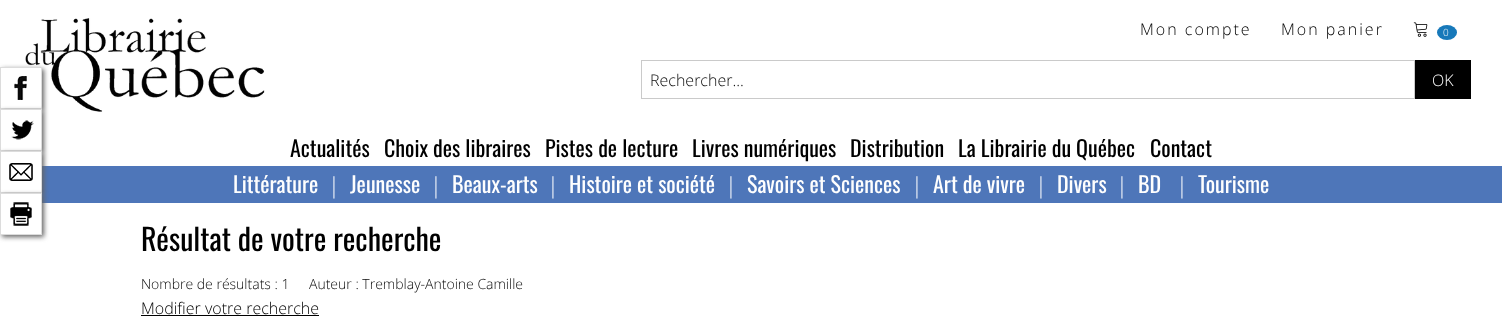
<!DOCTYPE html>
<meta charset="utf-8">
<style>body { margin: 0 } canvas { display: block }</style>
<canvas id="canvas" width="1502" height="325"></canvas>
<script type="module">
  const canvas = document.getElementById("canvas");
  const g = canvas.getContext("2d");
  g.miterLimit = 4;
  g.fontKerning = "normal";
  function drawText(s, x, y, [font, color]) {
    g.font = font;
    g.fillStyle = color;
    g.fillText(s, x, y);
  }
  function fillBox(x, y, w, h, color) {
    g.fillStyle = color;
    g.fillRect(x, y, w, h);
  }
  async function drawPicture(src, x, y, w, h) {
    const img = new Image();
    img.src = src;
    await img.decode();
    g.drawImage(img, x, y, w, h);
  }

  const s1 = ["300 16px Open Sans", "#000000"];
  const s2 = ["300 10px Open Sans", "#FEFEFE"];
  const s3 = ["300 16px Open Sans", "#0A0A0A"];
  const s4 = ["300 16px Open Sans", "#FEFEFE"];
  const s5 = ["22px Oswald", "#000000"];
  const s6 = ["22px Oswald", "#FEFEFE"];
  const s7 = ["300 22px Open Sans", "#FEFEFE"];
  const s8 = ["30px Oswald", "#000000"];
  const s9 = ["300 14px Open Sans", "#0A0A0A"];

  fillBox(0, 0, 1502, 325, "#FFFFFF");
  await drawPicture("pic5.png", 25, 18, 240, 94);
  g.save();
  g.beginPath();
  g.moveTo(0, 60);
  g.lineTo(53, 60);
  g.lineTo(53, 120);
  g.lineTo(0, 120);
  g.closePath();
  g.moveTo(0, 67);
  g.lineTo(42, 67);
  g.lineTo(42, 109);
  g.lineTo(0, 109);
  g.closePath();
  g.clip("evenodd");
  g.fillStyle = "#656565";
  g.filter = "blur(2.5px)";
  g.beginPath();
  g.rect(2, 69, 42, 42);
  g.fill();
  g.filter = "none";
  g.restore();
  g.strokeStyle = "#DCDCDC";
  g.strokeRect(0.5, 67.5, 41, 41);
  await drawPicture("pic1.png", 14, 76, 13, 24);
  g.save();
  g.beginPath();
  g.moveTo(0, 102);
  g.lineTo(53, 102);
  g.lineTo(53, 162);
  g.lineTo(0, 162);
  g.closePath();
  g.moveTo(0, 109);
  g.lineTo(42, 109);
  g.lineTo(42, 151);
  g.lineTo(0, 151);
  g.closePath();
  g.clip("evenodd");
  g.fillStyle = "#656565";
  g.filter = "blur(2.5px)";
  g.beginPath();
  g.rect(2, 111, 42, 42);
  g.fill();
  g.filter = "none";
  g.restore();
  g.strokeRect(0.5, 109.5, 41, 41);
  await drawPicture("pic2.png", 1, 110, 40, 30);
  fillBox(42, 166, 1460, 37, "#4E76B9");
  g.fillStyle = "#656565";
  g.filter = "blur(2.5px)";
  g.beginPath();
  g.rect(2, 153, 42, 42);
  g.fill();
  g.filter = "none";
  g.strokeRect(0.5, 151.5, 41, 41);
  await drawPicture("pic3.png", 1, 152, 40, 40);
  g.save();
  g.beginPath();
  g.moveTo(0, 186);
  g.lineTo(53, 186);
  g.lineTo(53, 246);
  g.lineTo(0, 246);
  g.closePath();
  g.moveTo(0, 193);
  g.lineTo(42, 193);
  g.lineTo(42, 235);
  g.lineTo(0, 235);
  g.closePath();
  g.clip("evenodd");
  g.filter = "blur(2.5px)";
  g.beginPath();
  g.rect(2, 195, 42, 42);
  g.fill();
  g.filter = "none";
  g.restore();
  g.strokeRect(0.5, 193.5, 41, 41);
  await drawPicture("pic4.png", 1, 194, 40, 32);
  g.letterSpacing = "2px";
  drawText("Mon compte", 1140, 35, s1);
  drawText("Mon panier", 1281, 35, s1);
  await drawPicture("pic6.png", 1413, 22, 15, 15);
  g.fillStyle = "#1779BA";
  g.beginPath();
  g.ellipse(1447, 32.5, 10, 7.5, 0, 0, Math.PI * 2);
  g.fill();
  drawText("0", 1443, 36, s2);
  g.strokeStyle = "#CACACA";
  g.strokeRect(641.5, 60.5, 773, 38);
  g.letterSpacing = "0px";
  drawText("Rechercher...", 650, 86, s3);
  fillBox(1415, 60, 56, 39, "#000000");
  drawText("OK", 1432, 86, s4);
  drawText("Actualités", 290, 157, s5);
  drawText("Choix des libraires", 384, 157, s5);
  drawText("Pistes de lecture", 545, 157, s5);
  drawText("Livres numériques", 692, 157, s5);
  drawText("Distribution", 850, 157, s5);
  drawText("La Librairie du Québec", 958, 157, s5);
  drawText("Contact", 1150, 157, s5);
  drawText("Littérature", 233, 193, s6);
  drawText("|", 328, 193, s7);
  drawText("Jeunesse", 350, 193, s6);
  drawText("|", 430, 193, s7);
  drawText("Beaux-arts", 452, 193, s6);
  drawText("|", 547, 193, s7);
  drawText("Histoire et société", 569, 193, s6);
  drawText("|", 725, 193, s7);
  drawText("Savoirs et Sciences", 747, 193, s6);
  drawText("|", 911, 193, s7);
  drawText("Art de vivre", 933, 193, s6);
  drawText("|", 1035, 193, s7);
  drawText("Divers", 1057, 193, s6);
  drawText("|", 1116, 193, s7);
  drawText("BD", 1138, 193, s6);
  drawText("|", 1176, 193, s7);
  drawText("Tourisme", 1198, 193, s6);
  drawText("Résultat de votre recherche", 141, 251, s8);
  drawText("Nombre de résultats : 1", 141, 289, s9);
  drawText("Auteur : Tremblay-Antoine Camille", 309, 289, s9);
  drawText("Modifier votre recherche", 141, 314, s1);
  fillBox(141, 315, 178, 1, "#000000");
</script>
